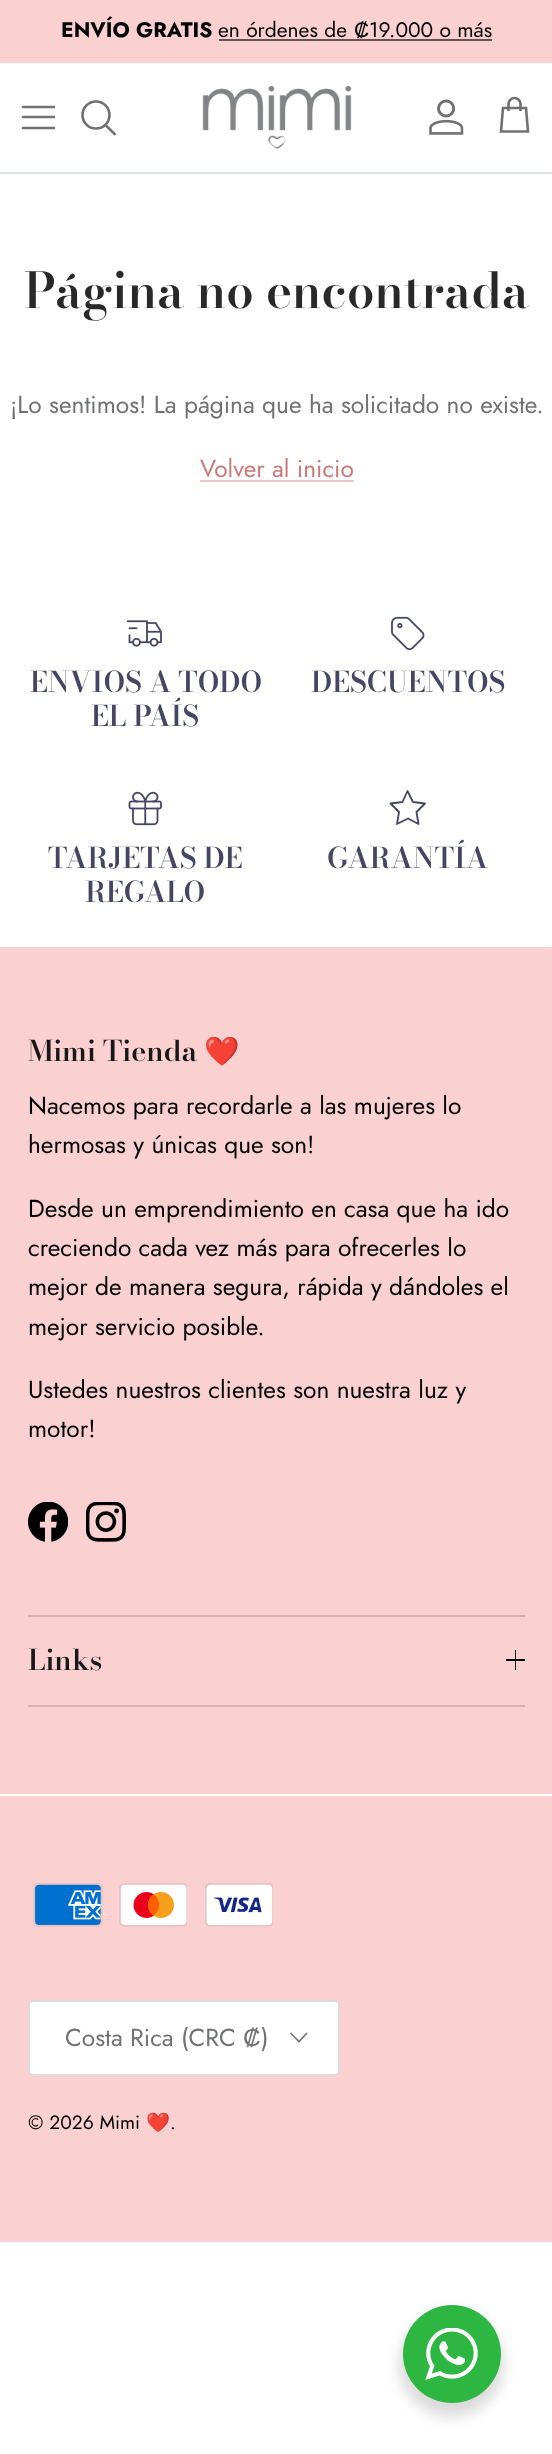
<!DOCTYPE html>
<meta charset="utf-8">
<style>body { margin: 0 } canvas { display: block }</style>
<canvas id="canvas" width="552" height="2454"></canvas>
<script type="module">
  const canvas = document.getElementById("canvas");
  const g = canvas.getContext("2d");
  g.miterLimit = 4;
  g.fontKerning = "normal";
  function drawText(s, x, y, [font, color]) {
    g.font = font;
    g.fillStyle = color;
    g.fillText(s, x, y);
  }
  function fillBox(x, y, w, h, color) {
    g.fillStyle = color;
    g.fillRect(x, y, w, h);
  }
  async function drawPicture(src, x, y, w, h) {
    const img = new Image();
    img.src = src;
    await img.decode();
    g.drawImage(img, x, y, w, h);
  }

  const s1 = ["bold 21px Jost", "#000000"];
  const s2 = ["21px Jost", "#000000"];
  const s3 = ["21px Liberation Sans", "#000000"];
  const s4 = ["600 49px Bodoni Moda", "#292929"];
  const s5 = ["24.5px Jost", "#707173"];
  const s6 = ["24.5px Jost", "#CA7878"];
  const s7 = ["600 28.5px 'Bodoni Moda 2'", "#454564"];
  const s8 = ["600 28.5px 'Bodoni Moda 2'", "#171717"];
  const s9 = ["bold 28.5px Noto Color Emoji", "#171717"];
  const s10 = ["24.5px Jost", "#000000"];
  const s11 = ["24.5px Liberation Sans", "#707173"];
  const s12 = ["19.25px Jost", "#000000"];
  const s13 = ["19.25px Noto Color Emoji", "#000000"];

  fillBox(0, 0, 552, 2454, "#FFFFFF");
  fillBox(0, 0, 552, 63, "#FAD0D0");
  drawText("ENVÍO GRATIS", 61, 37, s1);
  drawText("en órdenes de", 218, 37, s2);
  drawText("₡", 354, 37, s3);
  fillBox(219, 39, 273, 2, "#645353");
  drawText("19.000 o más", 369, 37, s2);
  fillBox(0, 172, 552, 2, "#DFE3E8");
  g.beginPath();
  g.moveTo(23, 117);
  g.lineTo(54, 117);
  g.moveTo(23, 107);
  g.lineTo(54, 107);
  g.moveTo(23, 128);
  g.lineTo(54, 128);
  g.strokeStyle = "#707173";
  g.lineWidth = 2.6;
  g.lineCap = "round";
  g.lineJoin = "round";
  g.stroke();
  g.beginPath();
  g.arc(96, 115, 13.5, 0, Math.PI * 2);
  g.stroke();
  g.beginPath();
  g.moveTo(106.5, 126);
  g.lineTo(114.5, 134);
  g.lineCap = "square";
  g.lineJoin = "miter";
  g.stroke();
  await drawPicture("pic1.png", 202, 85, 150, 64);
  await drawPicture("pic2.png", 429, 99, 35, 36);
  g.beginPath();
  g.moveTo(520.5, 111);
  g.lineTo(520.5, 104);
  g.bezierCurveTo(520.5, 100.5, 517.5, 98, 514.5, 98);
  g.bezierCurveTo(511.5, 98, 508.5, 100.5, 508.5, 104);
  g.lineTo(508.5, 111);
  g.moveTo(503, 108);
  g.lineTo(526, 108);
  g.lineTo(528, 131.5);
  g.lineTo(501, 131.5);
  g.closePath();
  g.lineCap = "butt";
  g.stroke();
  drawText("Página no encontrada", 24, 308, s4);
  drawText("¡Lo sentimos! La página que ha solicitado no existe.", 10, 413, s5);
  drawText("Volver al inicio", 200, 477, s6);
  fillBox(200, 480, 154, 2, "#EAC9C9");
  await drawPicture("pic3.png", 126, 620, 36, 27);
  drawText("ENVIOS A TODO", 30, 692, s7);
  drawText("EL PAÍS", 91, 726, s7);
  await drawPicture("pic4.png", 391, 616, 34, 35);
  drawText("DESCUENTOS", 311, 692, s7);
  await drawPicture("pic5.png", 128, 791, 34, 35);
  drawText("TARJETAS DE", 48, 868, s7);
  drawText("REGALO", 85, 902, s7);
  g.beginPath();
  g.moveTo(408, 818.5);
  g.lineTo(397, 824);
  g.lineTo(399, 812);
  g.lineTo(390.5, 803.5);
  g.lineTo(402.5, 802);
  g.lineTo(407.5, 791);
  g.lineTo(413, 802);
  g.lineTo(425, 803.5);
  g.lineTo(416.5, 812);
  g.lineTo(418.5, 824);
  g.closePath();
  g.strokeStyle = "#454564";
  g.lineWidth = 1.8;
  g.lineCap = "round";
  g.lineJoin = "round";
  g.stroke();
  drawText("GARANTÍA", 327, 868, s7);
  fillBox(0, 947, 552, 1295, "#FAD0D0");
  drawText("Mimi Tienda", 28, 1061, s8);
  drawText("❤️", 204, 1061, s9);
  drawText("Nacemos para recordarle a las mujeres lo", 28, 1114, s10);
  drawText("hermosas y únicas que son!", 28, 1153, s10);
  drawText("Desde un emprendimiento en casa que ha ido", 28, 1217, s10);
  drawText("creciendo cada vez más para ofrecerles lo", 28, 1256, s10);
  drawText("mejor de manera segura, rápida y dándoles el", 28, 1295, s10);
  drawText("mejor servicio posible.", 28, 1335, s10);
  drawText("Ustedes nuestros clientes son nuestra luz y", 28, 1398, s10);
  drawText("motor!", 28, 1437, s10);
  await drawPicture("pic6.png", 28, 1502, 40, 40);
  await drawPicture("pic7.png", 86, 1502, 40, 40);
  fillBox(28, 1615, 497, 2, "#D5B1B1");
  fillBox(28, 1705, 497, 2, "#D5B1B1");
  drawText("Links", 28, 1670, s8);
  fillBox(515, 1650, 1, 20, "#000000");
  fillBox(506, 1659, 19, 2, "#000000");
  fillBox(0, 1794, 552, 2, "#FFFFFF");
  await drawPicture("pic8.png", 33, 1883, 70, 44);
  await drawPicture("pic9.png", 119, 1883, 68, 44);
  await drawPicture("pic10.png", 205, 1883, 68, 44);
  g.beginPath();
  g.roundRect(29, 2001, 310, 74, 4);
  g.fill();
  g.strokeStyle = "#DBDCDC";
  g.lineWidth = 2;
  g.lineJoin = "miter";
  g.stroke();
  drawText("Costa Rica (CRC", 65, 2046, s5);
  drawText("₡", 243, 2046, s11);
  drawText(")", 261, 2046, s5);
  g.beginPath();
  g.moveTo(307, 2033);
  g.lineTo(299, 2041.5);
  g.lineTo(290.5, 2033);
  g.strokeStyle = "#707173";
  g.lineWidth = 1.6;
  g.lineCap = "butt";
  g.stroke();
  drawText("© 2026 Mimi", 28, 2129, s12);
  drawText("❤️", 146, 2129, s13);
  drawText(".", 170, 2129, s12);
  g.fillStyle = "rgba(0, 0, 0, 0.14)";
  g.filter = "blur(7px)";
  g.beginPath();
  g.roundRect(399, 2312, 105, 105, 52.5);
  g.fill();
  g.filter = "none";
  g.fillStyle = "#2DB742";
  g.beginPath();
  g.arc(452, 2354, 49, 0, Math.PI * 2);
  g.fill();
  await drawPicture("pic11.png", 425, 2328, 53, 52);
</script>
